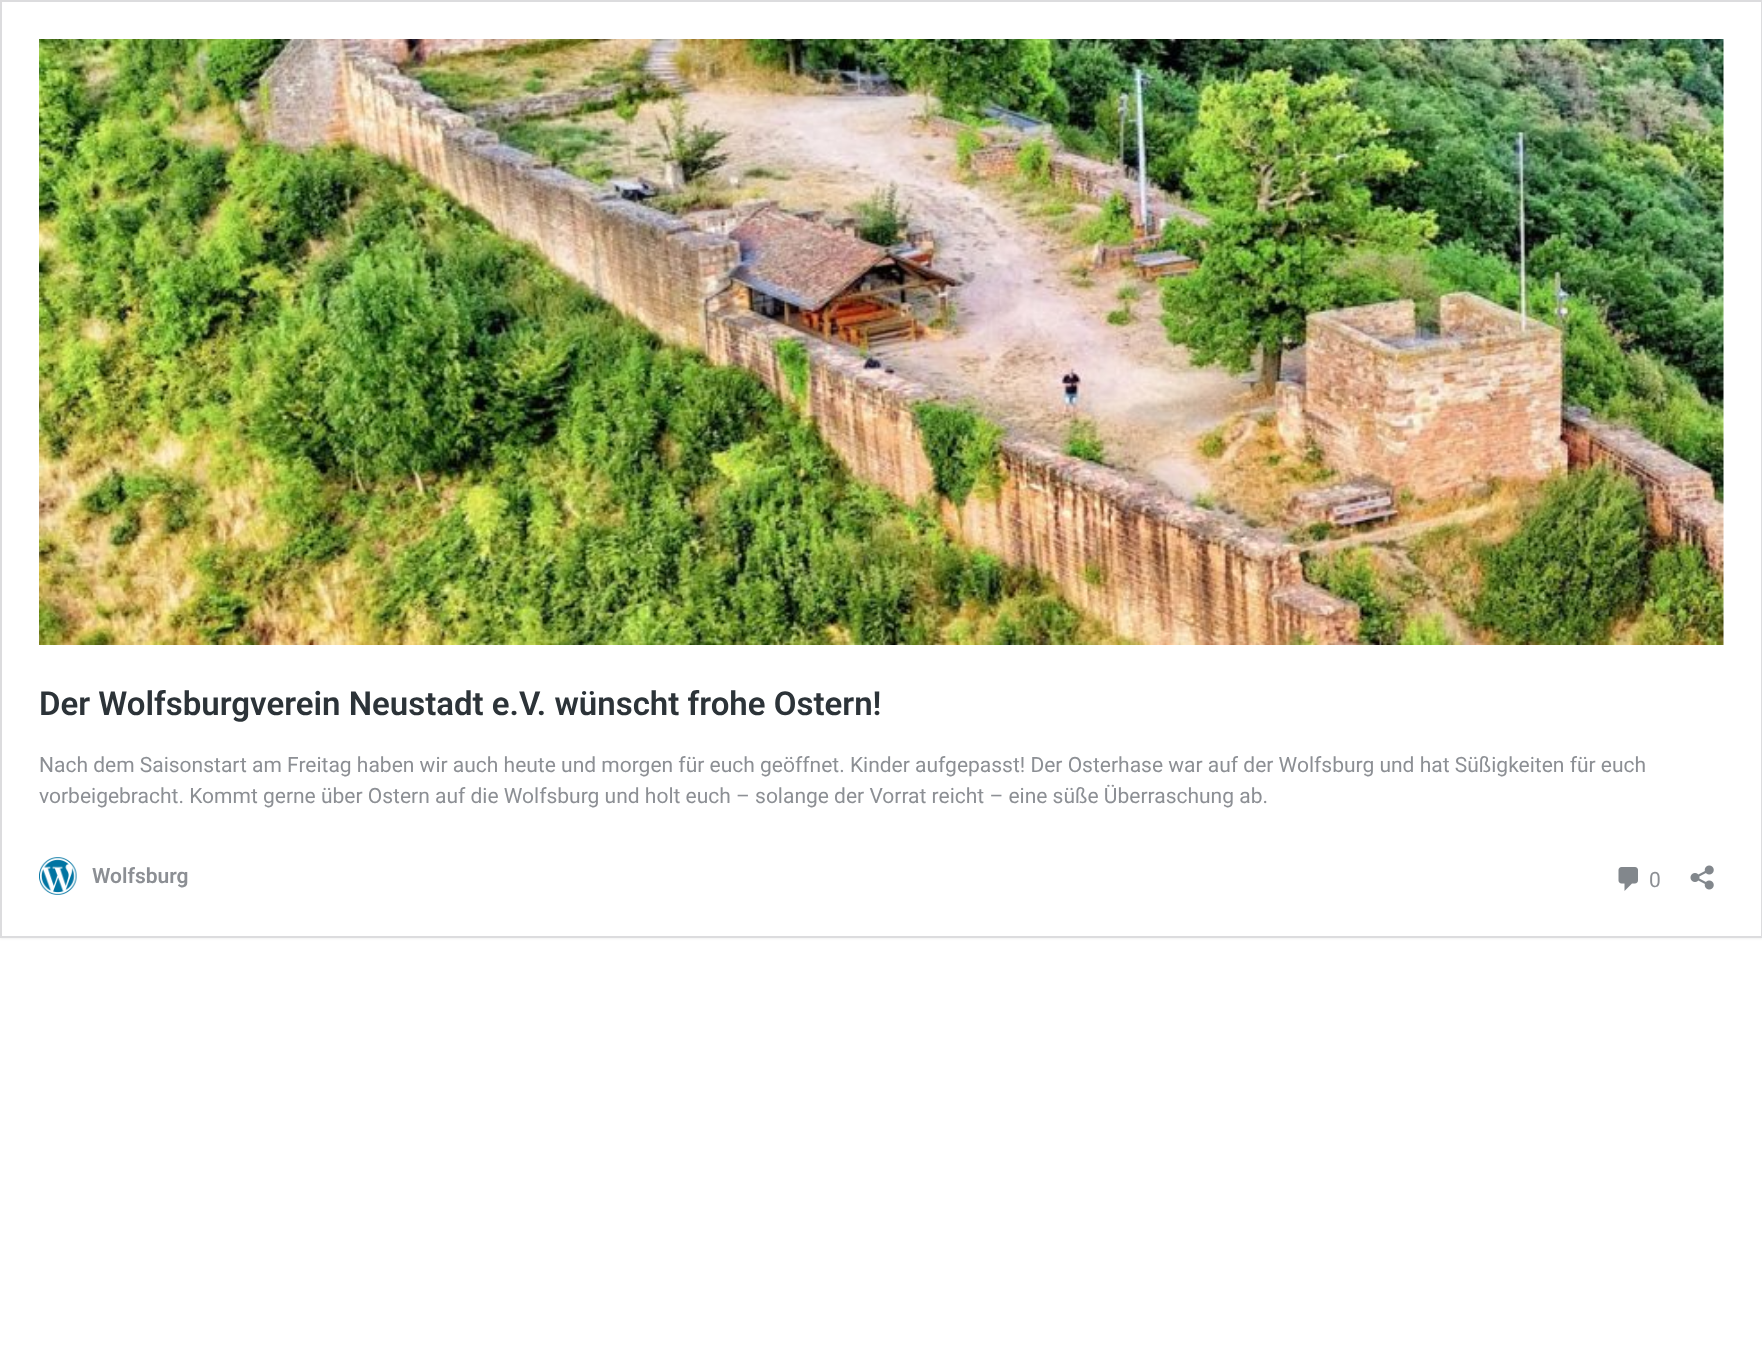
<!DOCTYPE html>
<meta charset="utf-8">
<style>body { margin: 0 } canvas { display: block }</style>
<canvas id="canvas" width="1762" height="1369"></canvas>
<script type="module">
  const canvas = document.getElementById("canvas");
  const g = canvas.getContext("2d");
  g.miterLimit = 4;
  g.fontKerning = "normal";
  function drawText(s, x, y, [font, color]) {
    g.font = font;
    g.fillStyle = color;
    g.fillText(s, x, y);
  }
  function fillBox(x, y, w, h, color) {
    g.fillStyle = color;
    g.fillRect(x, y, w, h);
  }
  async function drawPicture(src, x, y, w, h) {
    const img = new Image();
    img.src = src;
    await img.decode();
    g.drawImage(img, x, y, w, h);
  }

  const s1 = ["600 33px Roboto", "#2C3338"];
  const s2 = ["21px Roboto", "#8C8F94"];
  const s3 = ["600 21px Roboto", "#8C8F94"];

  fillBox(0, 0, 1762, 1369, "#FFFFFF");
  g.fillStyle = "rgba(0, 0, 0, 0.05)";
  g.filter = "blur(1px)";
  g.beginPath();
  g.rect(0, 2, 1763, 937);
  g.fill();
  g.filter = "none";
  g.fillStyle = "#FFFFFF";
  g.beginPath();
  g.rect(1, 1, 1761, 936);
  g.fill();
  g.strokeStyle = "#DCDCDE";
  g.lineWidth = 2;
  g.stroke();
  await drawPicture("pic1.png", 39, 39, 1685, 606);
  drawText("Der Wolfsburgverein Neustadt e.V. wünscht frohe Ostern!", 39, 715, s1);
  drawText("Nach dem Saisonstart am Freitag haben wir auch heute und morgen für euch geöffnet. Kinder aufgepasst! Der Osterhase war auf der Wolfsburg und hat Süßigkeiten für euch", 39, 772, s2);
  drawText("vorbeigebracht. Kommt gerne über Ostern auf die Wolfsburg und holt euch – solange der Vorrat reicht – eine süße Überraschung ab.", 39, 803, s2);
  await drawPicture("pic2.png", 39, 857, 38, 38);
  drawText("Wolfsburg", 92, 883, s3);
  await drawPicture("pic3.png", 1618, 867, 20, 24);
  drawText("0", 1649, 887, s2);
  await drawPicture("pic4.png", 1690, 865, 24, 25);
</script>
